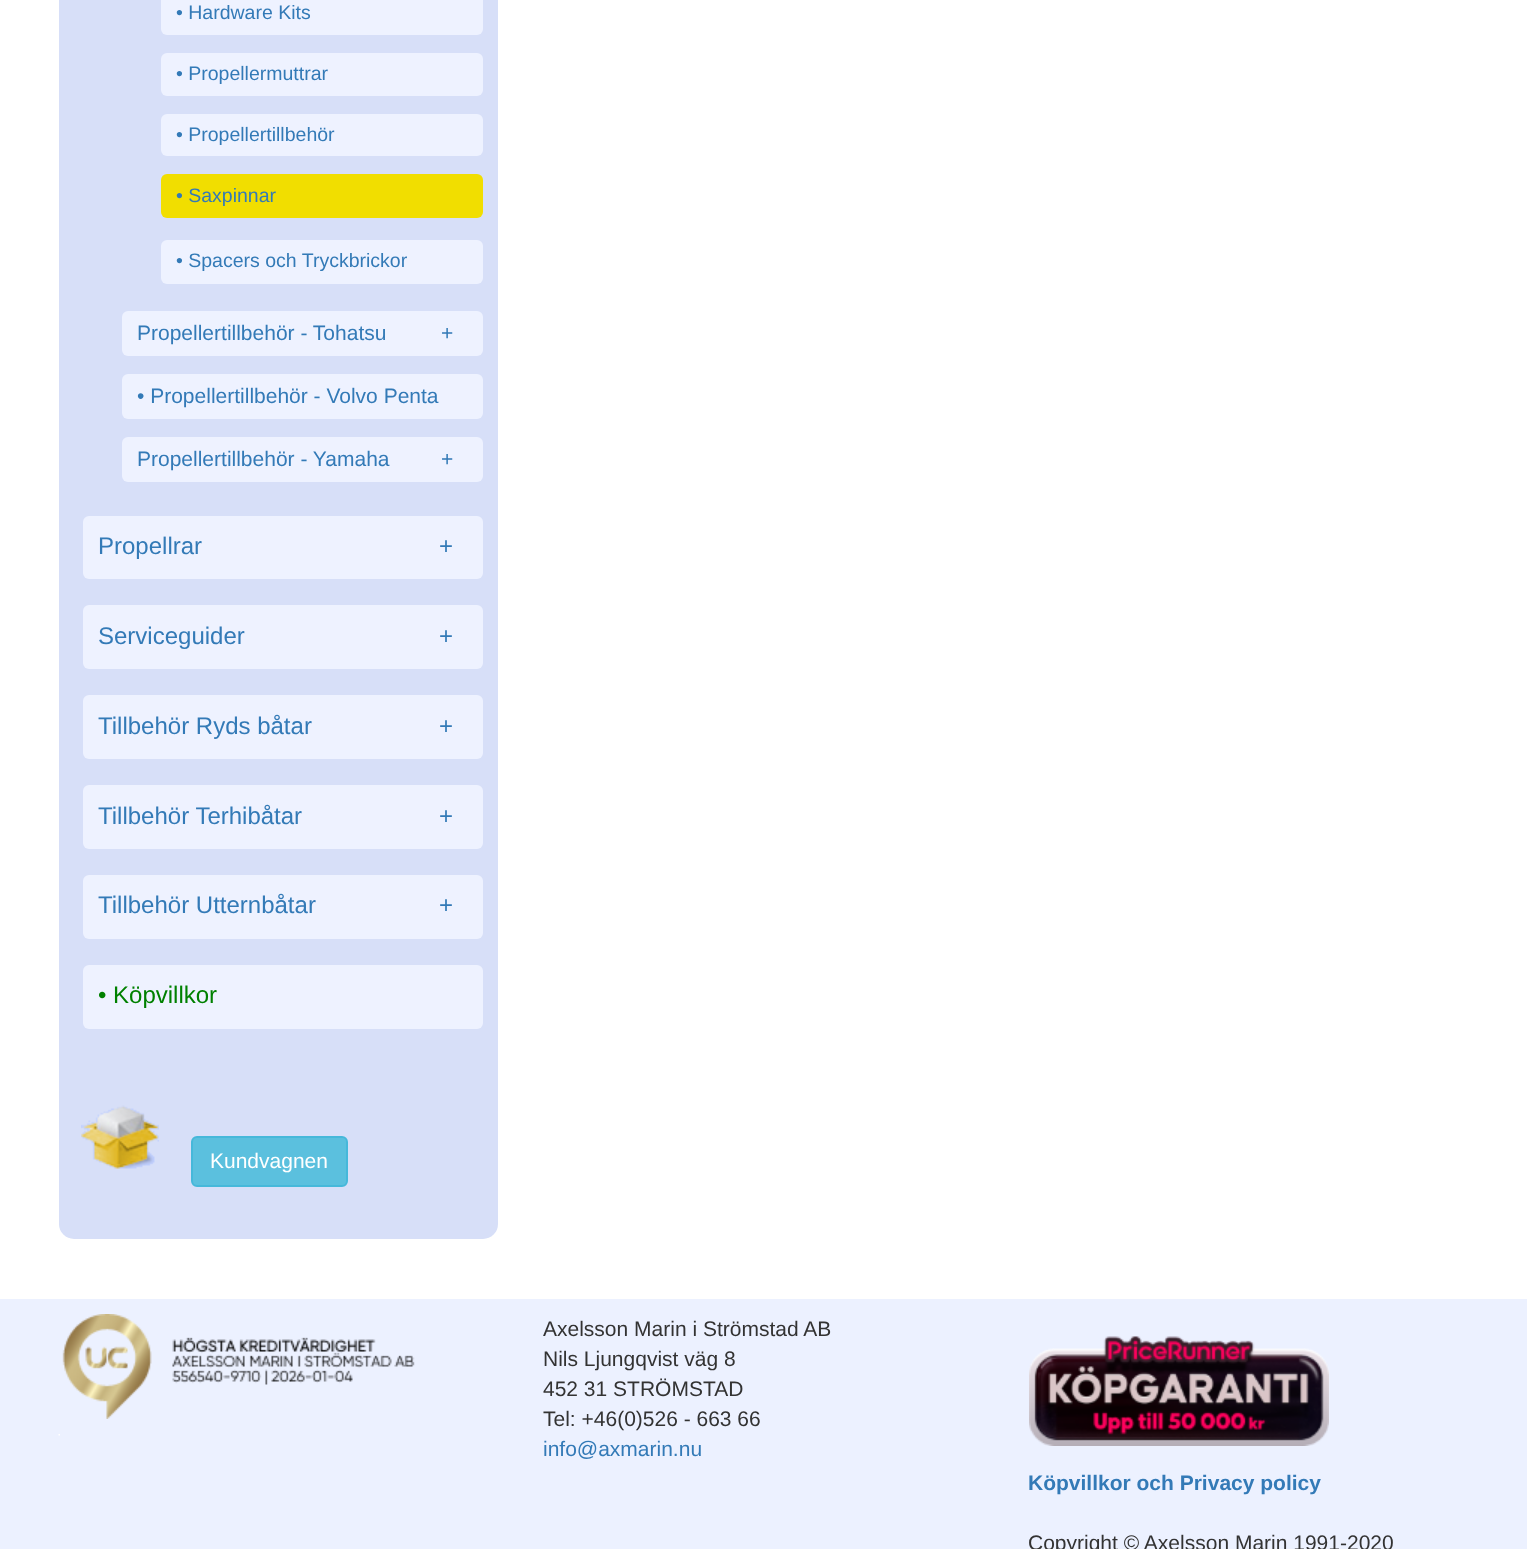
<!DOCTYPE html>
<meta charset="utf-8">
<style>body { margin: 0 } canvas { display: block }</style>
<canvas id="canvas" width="1527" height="1549"></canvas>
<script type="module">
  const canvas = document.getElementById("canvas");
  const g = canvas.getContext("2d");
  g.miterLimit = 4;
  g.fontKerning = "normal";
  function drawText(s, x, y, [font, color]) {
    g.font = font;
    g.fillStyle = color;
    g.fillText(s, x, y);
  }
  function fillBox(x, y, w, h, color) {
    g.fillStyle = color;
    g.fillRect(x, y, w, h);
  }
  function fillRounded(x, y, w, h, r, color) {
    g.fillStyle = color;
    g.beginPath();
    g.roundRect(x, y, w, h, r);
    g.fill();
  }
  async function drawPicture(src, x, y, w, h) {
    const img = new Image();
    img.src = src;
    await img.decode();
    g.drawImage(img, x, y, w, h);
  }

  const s1 = ["19.5px Liberation Sans", "#337AB7"];
  const s2 = ["21px Liberation Sans", "#337AB7"];
  const s3 = ["24px Liberation Sans", "#337AB7"];
  const s4 = ["24px Liberation Sans", "#008000"];
  const s5 = ["21px Liberation Sans", "#FFFFFF"];
  const s6 = ["21px Liberation Sans", "#333333"];
  const s7 = ["bold 21px Liberation Sans", "#337AB7"];

  fillBox(0, 0, 1527, 1549, "#FFFFFF");
  fillRounded(59, -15, 439, 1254, 15, "#D7DFF8");
  fillRounded(161, -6, 322, 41, 6, "#EEF2FF");
  drawText("• Hardware Kits", 176, 19, s1);
  fillRounded(161, 53, 322, 43, 6, "#EEF2FF");
  drawText("• Propellermuttrar", 176, 80, s1);
  fillRounded(161, 114, 322, 42, 6, "#EEF2FF");
  drawText("• Propellertillbehör", 176, 141, s1);
  fillRounded(161, 174, 322, 44, 6, "#F1DE00");
  drawText("• Saxpinnar", 176, 202, s1);
  fillRounded(161, 240, 322, 44, 6, "#EEF2FF");
  drawText("• Spacers och Tryckbrickor", 176, 267, s1);
  fillRounded(122, 311, 361, 45, 6, "#EEF2FF");
  drawText("Propellertillbehör - Tohatsu", 137, 340, s2);
  drawText("+", 441, 340, s2);
  fillRounded(122, 374, 361, 45, 6, "#EEF2FF");
  drawText("• Propellertillbehör - Volvo Penta", 137, 403, s2);
  fillRounded(122, 437, 361, 45, 6, "#EEF2FF");
  drawText("Propellertillbehör - Yamaha", 137, 466, s2);
  drawText("+", 441, 466, s2);
  fillRounded(83, 516, 400, 63, 6, "#EEF2FF");
  drawText("Propellrar", 98, 554, s3);
  drawText("+", 439, 554, s3);
  fillRounded(83, 605, 400, 64, 6, "#EEF2FF");
  drawText("Serviceguider", 98, 644, s3);
  drawText("+", 439, 644, s3);
  fillRounded(83, 695, 400, 64, 6, "#EEF2FF");
  drawText("Tillbehör Ryds båtar", 98, 734, s3);
  drawText("+", 439, 734, s3);
  fillRounded(83, 785, 400, 64, 6, "#EEF2FF");
  drawText("Tillbehör Terhibåtar", 98, 824, s3);
  drawText("+", 439, 824, s3);
  fillRounded(83, 875, 400, 64, 6, "#EEF2FF");
  drawText("Tillbehör Utternbåtar", 98, 913, s3);
  drawText("+", 439, 913, s3);
  fillRounded(83, 965, 400, 64, 6, "#EEF2FF");
  drawText("• Köpvillkor", 98, 1003, s4);
  await drawPicture("pic1.png", 81, 1105, 78, 64);
  g.fillStyle = "#5BC0DE";
  g.beginPath();
  g.roundRect(192, 1137, 155, 49, 5);
  g.fill();
  g.strokeStyle = "#46B8DA";
  g.lineWidth = 2;
  g.stroke();
  drawText("Kundvagnen", 210, 1168, s5);
  fillBox(0, 1299, 1527, 250, "#ECF1FF");
  await drawPicture("pic2.png", 62, 1314, 353, 105);
  await drawPicture("pic3.png", 58, 1434, 2, 2);
  drawText("Axelsson Marin i Strömstad AB", 543, 1336, s6);
  drawText("Nils Ljungqvist väg 8", 543, 1366, s6);
  drawText("452 31 STRÖMSTAD", 543, 1396, s6);
  drawText("Tel: +46(0)526 - 663 66", 543, 1426, s6);
  drawText("info@axmarin.nu", 543, 1456, s2);
  await drawPicture("pic4.png", 1029, 1336, 300, 110);
  drawText("Köpvillkor och Privacy policy", 1028, 1490, s7);
  drawText("Copyright © Axelsson Marin 1991-2020", 1028, 1550, s6);
</script>
